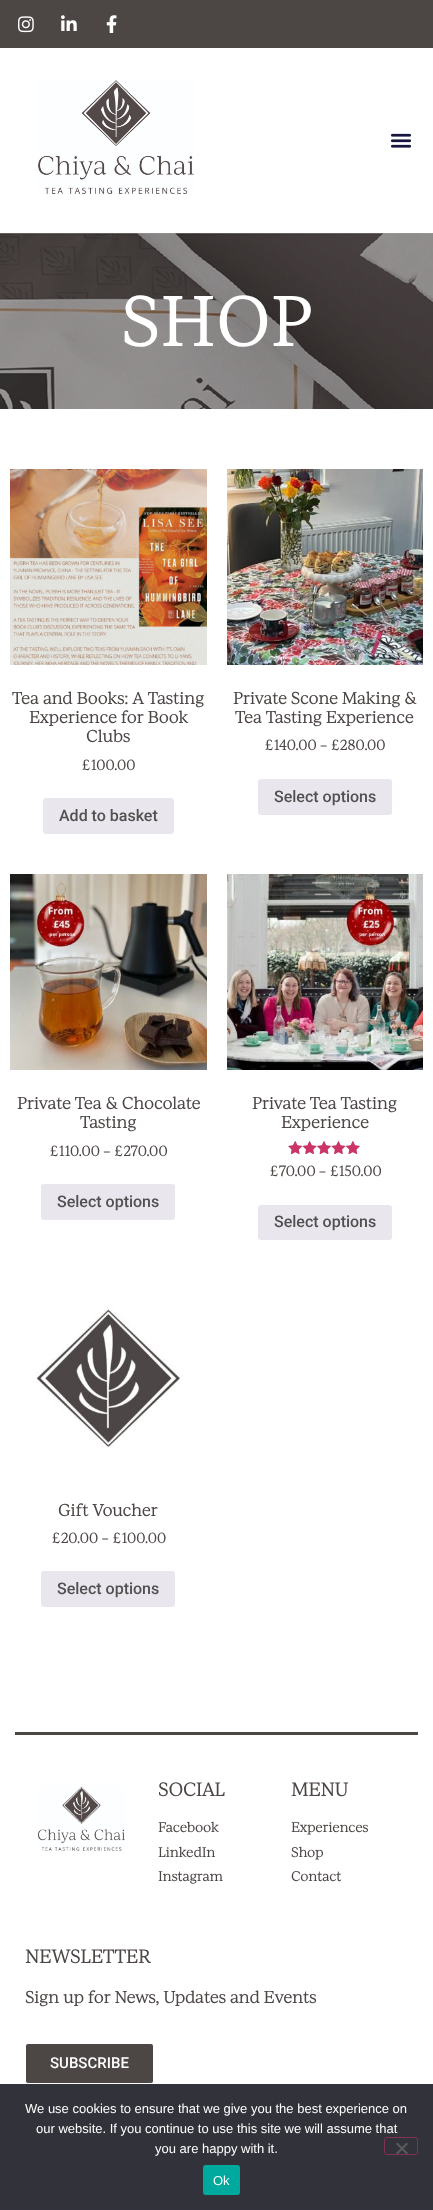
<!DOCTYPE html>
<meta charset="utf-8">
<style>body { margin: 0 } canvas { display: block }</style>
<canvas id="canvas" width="433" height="2210"></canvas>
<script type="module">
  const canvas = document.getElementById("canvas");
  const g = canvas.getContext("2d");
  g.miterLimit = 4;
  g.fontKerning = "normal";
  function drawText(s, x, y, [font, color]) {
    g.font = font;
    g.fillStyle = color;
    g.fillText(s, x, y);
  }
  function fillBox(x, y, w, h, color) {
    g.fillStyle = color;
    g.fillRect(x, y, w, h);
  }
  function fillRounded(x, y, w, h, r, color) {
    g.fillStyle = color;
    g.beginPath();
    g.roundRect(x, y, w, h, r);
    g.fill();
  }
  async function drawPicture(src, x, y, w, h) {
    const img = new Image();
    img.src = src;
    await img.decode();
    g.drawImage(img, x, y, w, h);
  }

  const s1 = ["bold 66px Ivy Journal", "#FFFFFF"];
  const s2 = ["bold 16px Ivy Journal", "#4C4645"];
  const s3 = ["bold 13.75px Ivy Journal", "#4C4645"];
  const s4 = ["500 16px Roboto", "#515151"];
  const s5 = ["bold 18px Ivy Journal", "#4C4645"];
  const s6 = ["bold 13px Ivy Journal", "#4C4645"];
  const s7 = ["500 15px Roboto", "#FFFFFF"];
  const s8 = ["13px Liberation Sans", "#FFFFFF"];

  fillBox(0, 0, 433, 2210, "#FFFFFF");
  fillBox(0, 0, 433, 48, "#4C4645");
  await drawPicture("pic1.png", 18, 16, 16, 17);
  await drawPicture("pic2.png", 61, 15, 16, 16);
  await drawPicture("pic3.png", 106, 15, 11, 18);
  await drawPicture("pic4.png", 38, 80, 156, 115);
  await drawPicture("pic5.png", 390, 133, 22, 15);
  await drawPicture("pic6.png", 0, 233, 433, 176);
  g.letterSpacing = "2px";
  drawText("SHOP", 121, 346, s1);
  await drawPicture("pic7.png", 10, 469, 197, 196);
  g.letterSpacing = "0px";
  drawText("Tea and Books: A Tasting", 12, 704, s2);
  drawText("Experience for Book", 29, 723, s2);
  drawText("Clubs", 86, 742, s2);
  drawText("£100.00", 81, 770, s3);
  fillRounded(43, 798, 131, 36, 3, "#E9E6ED");
  drawText("Add to basket", 59, 821, s4);
  await drawPicture("pic8.png", 227, 469, 196, 196);
  drawText("Private Scone Making &", 233, 704, s2);
  drawText("Tea Tasting Experience", 235, 723, s2);
  drawText("£140.00 – £280.00", 264, 750, s3);
  fillRounded(258, 779, 134, 36, 3, "#E9E6ED");
  drawText("Select options", 274, 802, s4);
  await drawPicture("pic9.png", 10, 874, 197, 196);
  drawText("Private Tea & Chocolate", 17, 1109, s2);
  drawText("Tasting", 80, 1128, s2);
  drawText("£110.00 – £270.00", 49, 1156, s3);
  fillRounded(41, 1184, 134, 36, 3, "#E9E6ED");
  drawText("Select options", 57, 1207, s4);
  await drawPicture("pic10.png", 227, 874, 196, 196);
  drawText("Private Tea Tasting", 252, 1109, s2);
  drawText("Experience", 281, 1128, s2);
  await drawPicture("pic11.png", 288, 1141, 72, 13);
  await drawPicture("pic12.png", 288, 1141, 72, 13);
  drawText("£70.00 – £150.00", 269, 1176, s3);
  fillRounded(258, 1205, 134, 35, 3, "#E9E6ED");
  drawText("Select options", 274, 1227, s4);
  await drawPicture("pic13.png", 36, 1306, 147, 142);
  drawText("Gift Voucher", 58, 1516, s2);
  drawText("£20.00 – £100.00", 51, 1543, s3);
  fillRounded(41, 1571, 134, 36, 3, "#E9E6ED");
  drawText("Select options", 57, 1594, s4);
  fillBox(15, 1732, 403, 3, "#4C4645");
  await drawPicture("pic14.png", 38, 1786, 87, 65);
  drawText("SOCIAL", 158, 1796, s5);
  drawText("Facebook", 158, 1832, s6);
  drawText("LinkedIn", 158, 1857, s6);
  drawText("Instagram", 158, 1881, s6);
  drawText("MENU", 291, 1796, s5);
  drawText("Experiences", 291, 1832, s6);
  drawText("Shop", 291, 1857, s6);
  drawText("Contact", 291, 1881, s6);
  drawText("NEWSLETTER", 25, 1963, s5);
  drawText("Sign up for News, Updates and Events", 25, 2003, s2);
  g.beginPath();
  g.roundRect(25.5, 2043.5, 128, 40, 2.5);
  g.fill();
  g.strokeStyle = "#FFFFFF";
  g.stroke();
  drawText("SUBSCRIBE", 50, 2068, s7);
  fillBox(0, 2084, 433, 126, "#32323A");
  drawText("We use cookies to ensure that we give you the best experience on", 25, 2113, s8);
  drawText("our website. If you continue to use this site we will assume that", 36, 2133, s8);
  drawText("you are happy with it.", 155, 2153, s8);
  g.beginPath();
  g.roundRect(384.5, 2137.5, 33, 17, 2.5);
  g.strokeStyle = "#7F3350";
  g.stroke();
  g.fillStyle = "#59595D";
  g.beginPath();
  g.moveTo(406.5, 2142.5);
  g.lineTo(408, 2144);
  g.lineTo(397.5, 2154.5);
  g.lineTo(396, 2153);
  g.closePath();
  g.fill();
  g.beginPath();
  g.moveTo(396, 2144);
  g.lineTo(397.5, 2142.5);
  g.lineTo(408, 2153);
  g.lineTo(406.5, 2154.5);
  g.closePath();
  g.fill();
  fillRounded(203, 2165, 37, 30, 3, "#00A99D");
  drawText("Ok", 213, 2185, s8);
</script>
